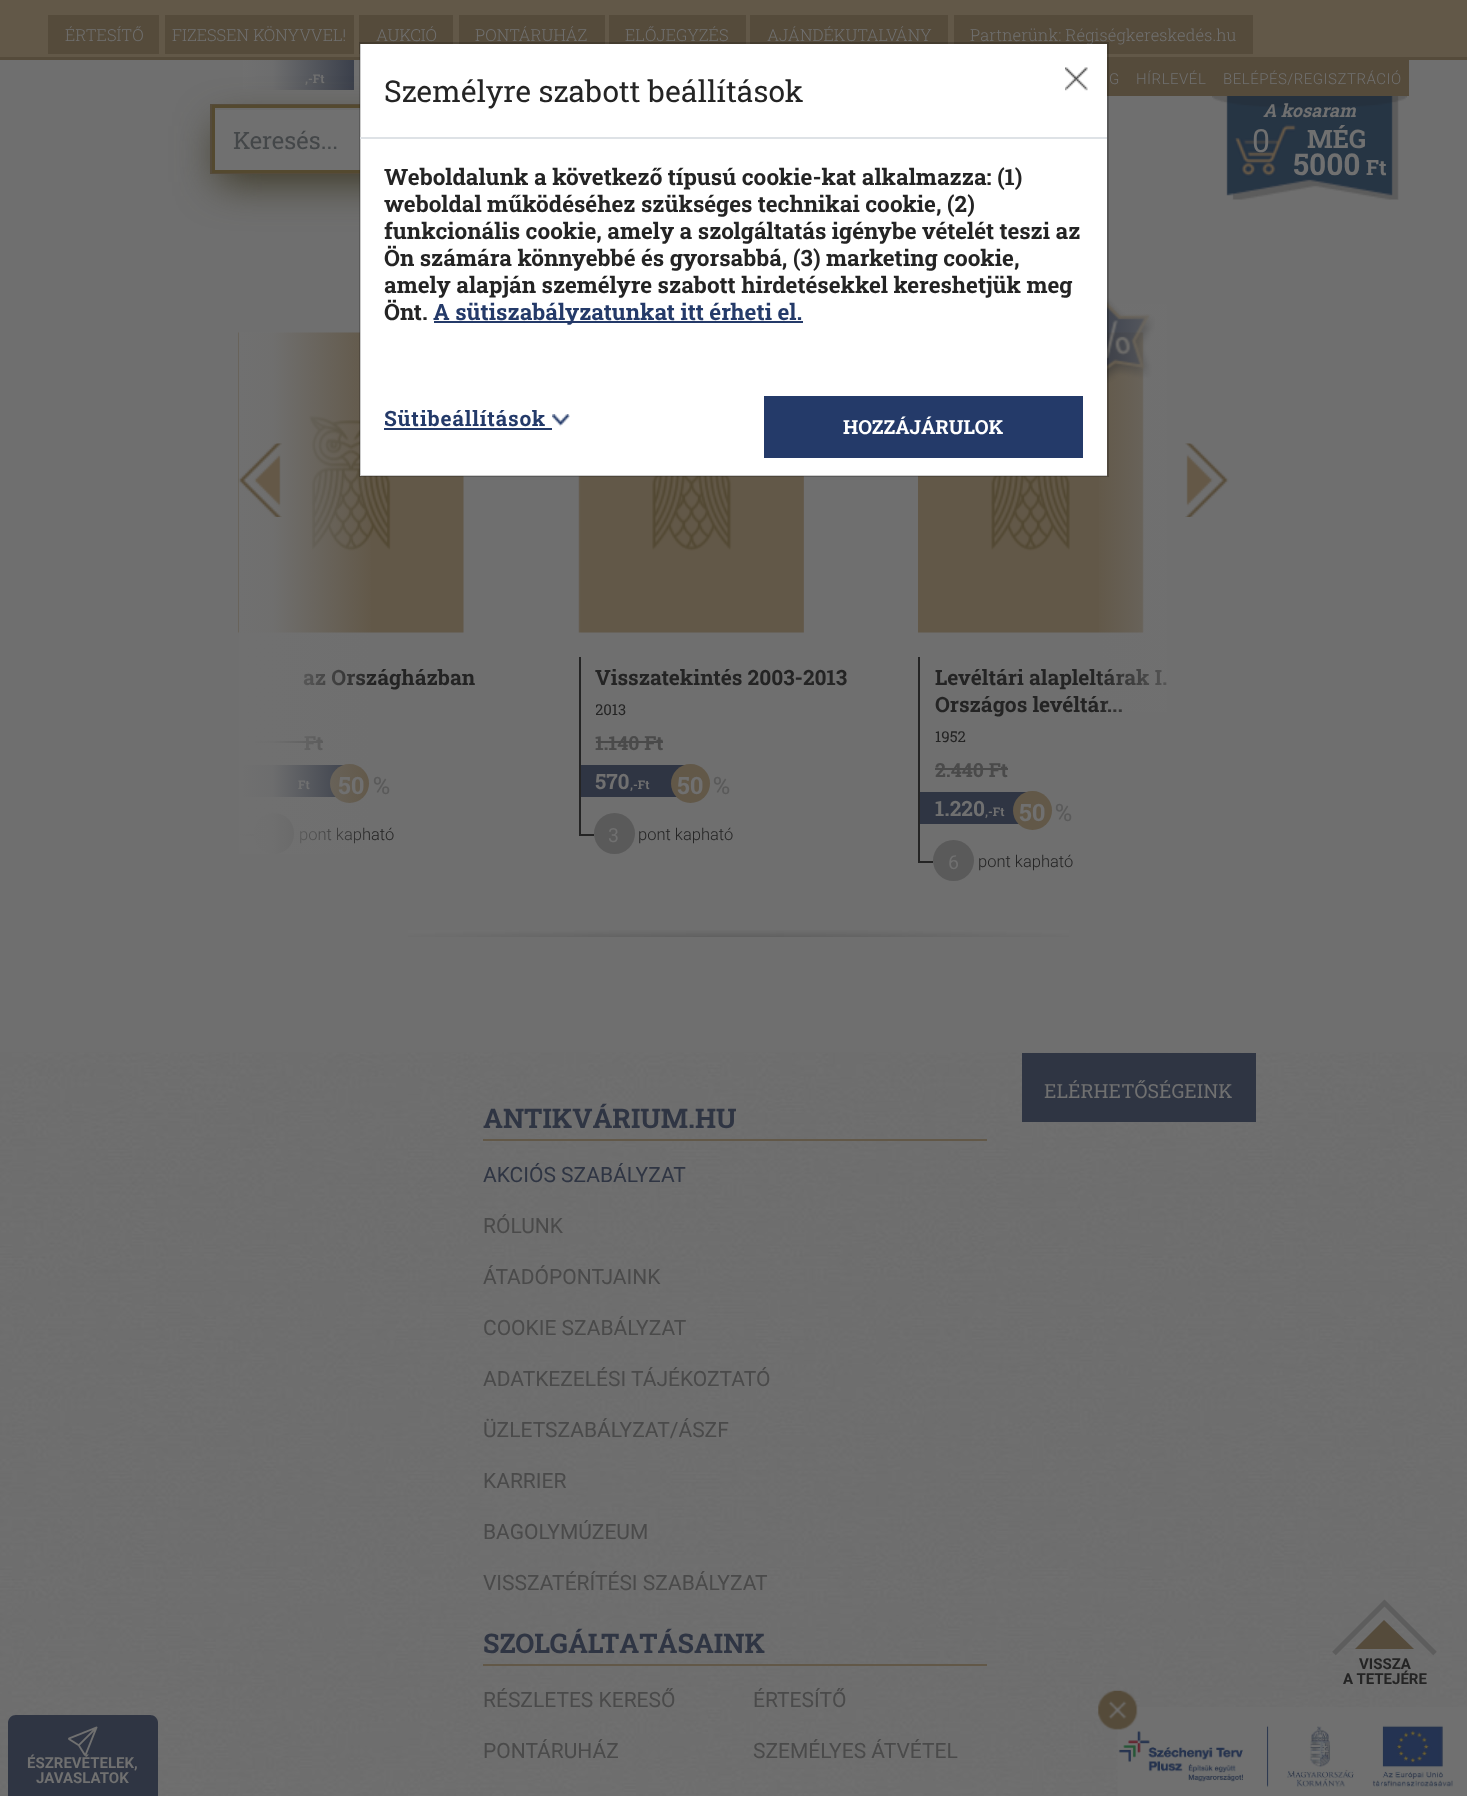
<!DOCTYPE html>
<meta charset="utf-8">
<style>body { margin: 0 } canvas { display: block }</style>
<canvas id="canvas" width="1467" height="1796"></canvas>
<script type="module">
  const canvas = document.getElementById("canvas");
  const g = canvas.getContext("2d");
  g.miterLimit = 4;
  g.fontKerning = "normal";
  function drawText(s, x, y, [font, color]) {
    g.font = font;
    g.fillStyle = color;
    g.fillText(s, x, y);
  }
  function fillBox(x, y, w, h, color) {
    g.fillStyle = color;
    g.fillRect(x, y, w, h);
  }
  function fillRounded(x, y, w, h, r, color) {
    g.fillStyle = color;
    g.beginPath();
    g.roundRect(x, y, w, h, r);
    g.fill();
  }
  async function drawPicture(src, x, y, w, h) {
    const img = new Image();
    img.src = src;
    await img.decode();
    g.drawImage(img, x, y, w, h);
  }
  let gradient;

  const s1 = ["300 16.5px Roboto Slab", "#707070"];
  const s2 = ["300 15px Roboto", "#707070"];
  const s3 = ["bold 12px Roboto Slab", "#707070"];
  const s4 = ["bold 21px Roboto Slab", "#242424"];
  const s5 = ["bold 19.5px Roboto Slab", "#4A4A4A"];
  const s6 = ["bold 24px Roboto Slab", "#707070"];
  const s7 = ["300 16.5px Roboto", "#242424"];
  const s8 = ["24px Roboto Slab", "#5A5A5A"];
  const s9 = ["15px Roboto Slab", "#242424"];
  const s10 = ["bold 21px Roboto Slab", "#707070"];
  const s11 = ["19.5px Roboto", "#707070"];
  const s12 = ["24px Roboto Slab", "#444749"];
  const s13 = ["30px Roboto Slab", "#242424"];
  const s14 = ["bold 22.5px Roboto Slab", "#242424"];
  const s15 = ["bold 22.5px Roboto Slab", "#243A69"];
  const s16 = ["bold 21px Roboto Slab", "#243A69"];
  const s17 = ["bold 19.5px Roboto Slab", "#FFFFFF"];
  const s18 = ["italic bold 18px Roboto Slab", "#707070"];
  const s19 = ["32px Roboto", "#707070"];
  const s20 = ["bold 25.5px Roboto Slab", "#707070"];
  const s21 = ["bold 30px Roboto Slab", "#707070"];
  const s22 = ["19.5px Roboto Slab", "#707070"];
  const s23 = ["bold 27px Roboto Slab", "#2F3543"];
  const s24 = ["21px Roboto", "#2F3543"];
  const s25 = ["21px Roboto", "#4A4A4A"];
  const s26 = ["bold 15px Roboto", "#242424"];
  const s27 = ["bold 15px Roboto", "#707070"];

  fillBox(0, 0, 1467, 1796, "#6F6F6F");
  fillBox(0, 0, 1467, 57, "#625848");
  fillBox(0, 57, 1467, 3, "#554B3B");
  fillBox(48, 15, 111, 39, "#554B3B");
  drawText("ÉRTESÍTŐ", 65, 41, s1);
  fillBox(165, 15, 189, 39, "#554B3B");
  drawText("FIZESSEN KÖNYVVEL!", 172, 41, s1);
  fillBox(359, 15, 94, 39, "#554B3B");
  drawText("AUKCIÓ", 376, 41, s1);
  fillBox(459, 15, 146, 29, "#554B3B");
  drawText("PONTÁRUHÁZ", 475, 41, s1);
  fillBox(609, 15, 137, 29, "#554B3B");
  drawText("ELŐJEGYZÉS", 625, 41, s1);
  fillBox(750, 15, 198, 29, "#554B3B");
  drawText("AJÁNDÉKUTALVÁNY", 767, 41, s1);
  fillBox(954, 15, 299, 39, "#554B3B");
  drawText("Partnerünk: Régiségkereskedés.hu", 970, 41, s1);
  fillBox(1107, 60, 302, 36, "#554B3B");
  g.letterSpacing = "0.5px";
  drawText("G", 1109, 84, s2);
  drawText("HÍRLEVÉL", 1136, 84, s2);
  drawText("BELÉPÉS/REGISZTRÁCIÓ", 1223, 84, s2);
  fillBox(243, 60, 111, 30, "#2F3543");
  g.letterSpacing = "0px";
  drawText(",-Ft", 305, 83, s3);
  gradient = g.createLinearGradient(239, -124, 374, -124);
  gradient.addColorStop(0, "#707070");
  gradient.addColorStop(0.25, "rgba(112, 112, 112, 0.95)");
  gradient.addColorStop(1, "rgba(112, 112, 112, 0)");
  g.fillStyle = gradient;
  g.fillRect(243, 60, 111, 30);
  await drawPicture("pic3.png", 238, 332, 226, 301);
  fillBox(239, 834, 15, 2, "#242424");
  drawText("az Országházban", 303, 685, s4);
  drawText("Ft", 304, 750, s5);
  fillBox(255, 741, 68, 2, "#4A4A4A");
  fillBox(243, 765, 101, 32, "#2F3543");
  drawText("Ft", 298, 789, s3);
  g.fillStyle = "#625848";
  g.beginPath();
  g.arc(349.5, 783.5, 19.5, 0, Math.PI * 2);
  g.fill();
  drawText("50", 338, 794, s6);
  fillRounded(254, 813, 40, 41, 20, "#5A5A5A");
  drawText("pont kapható", 299, 840, s7);
  gradient = g.createLinearGradient(239, 600, 374, 600);
  gradient.addColorStop(0, "#707070");
  gradient.addColorStop(0.25, "rgba(112, 112, 112, 0.95)");
  gradient.addColorStop(1, "rgba(112, 112, 112, 0)");
  g.fillStyle = gradient;
  g.fillRect(239, 332, 132, 522);
  await drawPicture("pic6.png", 918, 332, 226, 301);
  await drawPicture("pic5.png", 1107, 298, 48, 85);
  drawText("Levéltári alapleltárak I.", 935, 685, s4);
  drawText("Országos levéltár...", 935, 712, s4);
  gradient = g.createLinearGradient(1094, 600, 1229, 600);
  gradient.addColorStop(0, "rgba(112, 112, 112, 0)");
  gradient.addColorStop(0.75, "rgba(112, 112, 112, 0.9)");
  gradient.addColorStop(1, "#707070");
  g.fillStyle = gradient;
  g.fillRect(1099, 304, 68, 408);
  await drawPicture("pic1.png", 238, 443, 44, 74);
  await drawPicture("pic2.png", 1185, 443, 44, 74);
  drawText("%", 373, 794, s8);
  await drawPicture("pic4.png", 578, 476, 226, 157);
  fillBox(579, 834, 15, 2, "#242424");
  fillBox(579, 657, 2, 179, "#242424");
  drawText("Visszatekintés 2003-2013", 595, 685, s4);
  g.save();
  g.beginPath();
  g.rect(596, 699, 277, 23);
  g.clip();
  drawText("2013", 595, 715, s9);
  g.restore();
  drawText("1.140 Ft", 595, 750, s5);
  fillBox(596, 741, 67, 2, "#4A4A4A");
  fillBox(581, 765, 104, 32, "#2F3543");
  drawText("570", 595, 789, s10);
  drawText(",-Ft", 630, 789, s3);
  g.fillStyle = "#625848";
  g.beginPath();
  g.arc(690.5, 783.5, 19.5, 0, Math.PI * 2);
  g.fill();
  drawText("50", 677, 794, s6);
  drawText("%", 713, 794, s8);
  g.beginPath();
  g.arc(614.5, 833.5, 20.5, 0, Math.PI * 2);
  g.fill();
  drawText("3", 608, 842, s11);
  drawText("pont kapható", 638, 840, s7);
  fillBox(918, 861, 15, 2, "#242424");
  fillBox(918, 657, 2, 206, "#242424");
  drawText("1952", 935, 742, s9);
  drawText("2.440 Ft", 935, 777, s5);
  fillBox(935, 768, 73, 2, "#4A4A4A");
  fillBox(920, 792, 107, 32, "#2F3543");
  drawText("1.220", 935, 816, s10);
  drawText(",-Ft", 985, 816, s3);
  g.fillStyle = "#625848";
  g.beginPath();
  g.arc(1032.5, 810.5, 19.5, 0, Math.PI * 2);
  g.fill();
  drawText("50", 1019, 821, s6);
  drawText("%", 1055, 821, s8);
  g.beginPath();
  g.arc(953.5, 860.5, 20.5, 0, Math.PI * 2);
  g.fill();
  drawText("6", 948, 869, s11);
  drawText("pont kapható", 978, 867, s7);
  await drawPicture("pic7.png", 408, 930, 661, 7);
  g.fillStyle = "#3B3724";
  g.filter = "blur(21px)";
  g.beginPath();
  g.rect(218, 126, 675, 56);
  g.fill();
  g.filter = "none";
  g.strokeStyle = "#554B3B";
  g.lineWidth = 2;
  g.strokeRect(211, 105, 688, 68);
  fillBox(215, 110, 145, 60, "#707070");
  fillBox(215, 108, 145, 2, "#6B6B6B");
  g.strokeStyle = "#54492F";
  g.lineWidth = 3;
  g.strokeRect(213.5, 106.5, 628, 65);
  drawText("Keresés...", 233, 149, s12);
  fillBox(360, 44, 747, 432, "#FFFFFF");
  g.strokeStyle = "rgba(0, 0, 0, 0.2)";
  g.lineWidth = 2;
  g.strokeRect(360, 43, 748, 433);
  fillBox(360, 137, 747, 2, "#DEE2E6");
  drawText("Személyre szabott beállítások", 384, 102, s13);
  await drawPicture("pic8.png", 1065, 67, 23, 24);
  drawText("Weboldalunk a következő típusú cookie-kat alkalmazza: (1)", 384, 185, s14);
  drawText("weboldal működéséhez szükséges technikai cookie, (2)", 384, 212, s14);
  drawText("funkcionális cookie, amely a szolgáltatás igénybe vételét teszi az", 384, 239, s14);
  drawText("Ön számára könnyebbé és gyorsabbá, (3) marketing cookie,", 384, 266, s14);
  drawText("amely alapján személyre szabott hirdetésekkel kereshetjük meg", 384, 293, s14);
  drawText("Önt.", 384, 320, s14);
  fillBox(434, 321, 369, 2, "#243A69");
  drawText("A sütiszabályzatunkat itt érheti el.", 433, 320, s15);
  g.letterSpacing = "0.75px";
  drawText("Sütibeállítások", 384, 426, s16);
  fillBox(384, 428, 168, 2, "#243A69");
  await drawPicture("pic9.png", 552, 414, 18, 13);
  fillBox(764, 396, 319, 62, "#243A69");
  g.letterSpacing = "0px";
  drawText("HOZZÁJÁRULOK", 843, 434, s17);
  await drawPicture("pic10.png", 1212, 96, 195, 104);
  drawText("A kosaram", 1263, 117, s18);
  drawText("0", 1252, 152, s19);
  drawText("MÉG", 1307, 148, s20);
  drawText("5000", 1293, 175, s21);
  drawText("Ft", 1366, 175, s10);
  await drawPicture("pic11.png", 0, 1052, 1467, 744);
  fillBox(1022, 1053, 234, 69, "#2F3543");
  drawText("ELÉRHETŐSÉGEINK", 1044, 1098, s22);
  fillBox(483, 1139, 504, 2, "#625848");
  drawText("ANTIKVÁRIUM.HU", 483, 1128, s23);
  drawText("AKCIÓS SZABÁLYZAT", 483, 1182, s24);
  drawText("RÓLUNK", 483, 1233, s25);
  drawText("ÁTADÓPONTJAINK", 483, 1284, s25);
  drawText("COOKIE SZABÁLYZAT", 483, 1335, s25);
  drawText("ADATKEZELÉSI TÁJÉKOZTATÓ", 483, 1386, s25);
  drawText("ÜZLETSZABÁLYZAT/ÁSZF", 483, 1437, s25);
  drawText("KARRIER", 483, 1488, s25);
  drawText("BAGOLYMÚZEUM", 483, 1539, s25);
  drawText("VISSZATÉRÍTÉSI SZABÁLYZAT", 483, 1590, s25);
  fillBox(483, 1664, 504, 2, "#625848");
  drawText("SZOLGÁLTATÁSAINK", 483, 1653, s23);
  drawText("RÉSZLETES KERESŐ", 483, 1707, s25);
  drawText("PONTÁRUHÁZ", 483, 1758, s25);
  drawText("ÉRTESÍTŐ", 753, 1707, s25);
  drawText("SZEMÉLYES ÁTVÉTEL", 753, 1758, s25);
  g.beginPath();
  g.moveTo(1334, 1653.5);
  g.lineTo(1384.5, 1603);
  g.lineTo(1435, 1653.5);
  g.strokeStyle = "#5D5D5D";
  g.lineWidth = 5;
  g.stroke();
  g.fillStyle = "#554B3B";
  g.beginPath();
  g.moveTo(1414, 1649);
  g.lineTo(1384, 1620);
  g.lineTo(1355, 1649);
  g.closePath();
  g.fill();
  drawText("VISSZA", 1359, 1669, s26);
  drawText("A TETEJÉRE", 1343, 1684, s26);
  g.fillStyle = "#2F3543";
  g.beginPath();
  g.moveTo(16, 1715);
  g.lineTo(150, 1715);
  g.bezierCurveTo(154.5, 1715, 158, 1718.5, 158, 1723);
  g.lineTo(158, 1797);
  g.lineTo(8, 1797);
  g.lineTo(8, 1723);
  g.bezierCurveTo(8, 1718.5, 11.5, 1715, 16, 1715);
  g.closePath();
  g.fill();
  await drawPicture("pic12.png", 68, 1726, 30, 30);
  drawText("ÉSZREVÉTELEK,", 27, 1768, s27);
  drawText("JAVASLATOK", 36, 1783, s27);
  await drawPicture("pic13.png", 1117, 1707, 350, 89);
  await drawPicture("pic14.png", 1098, 1690, 40, 40);
</script>
